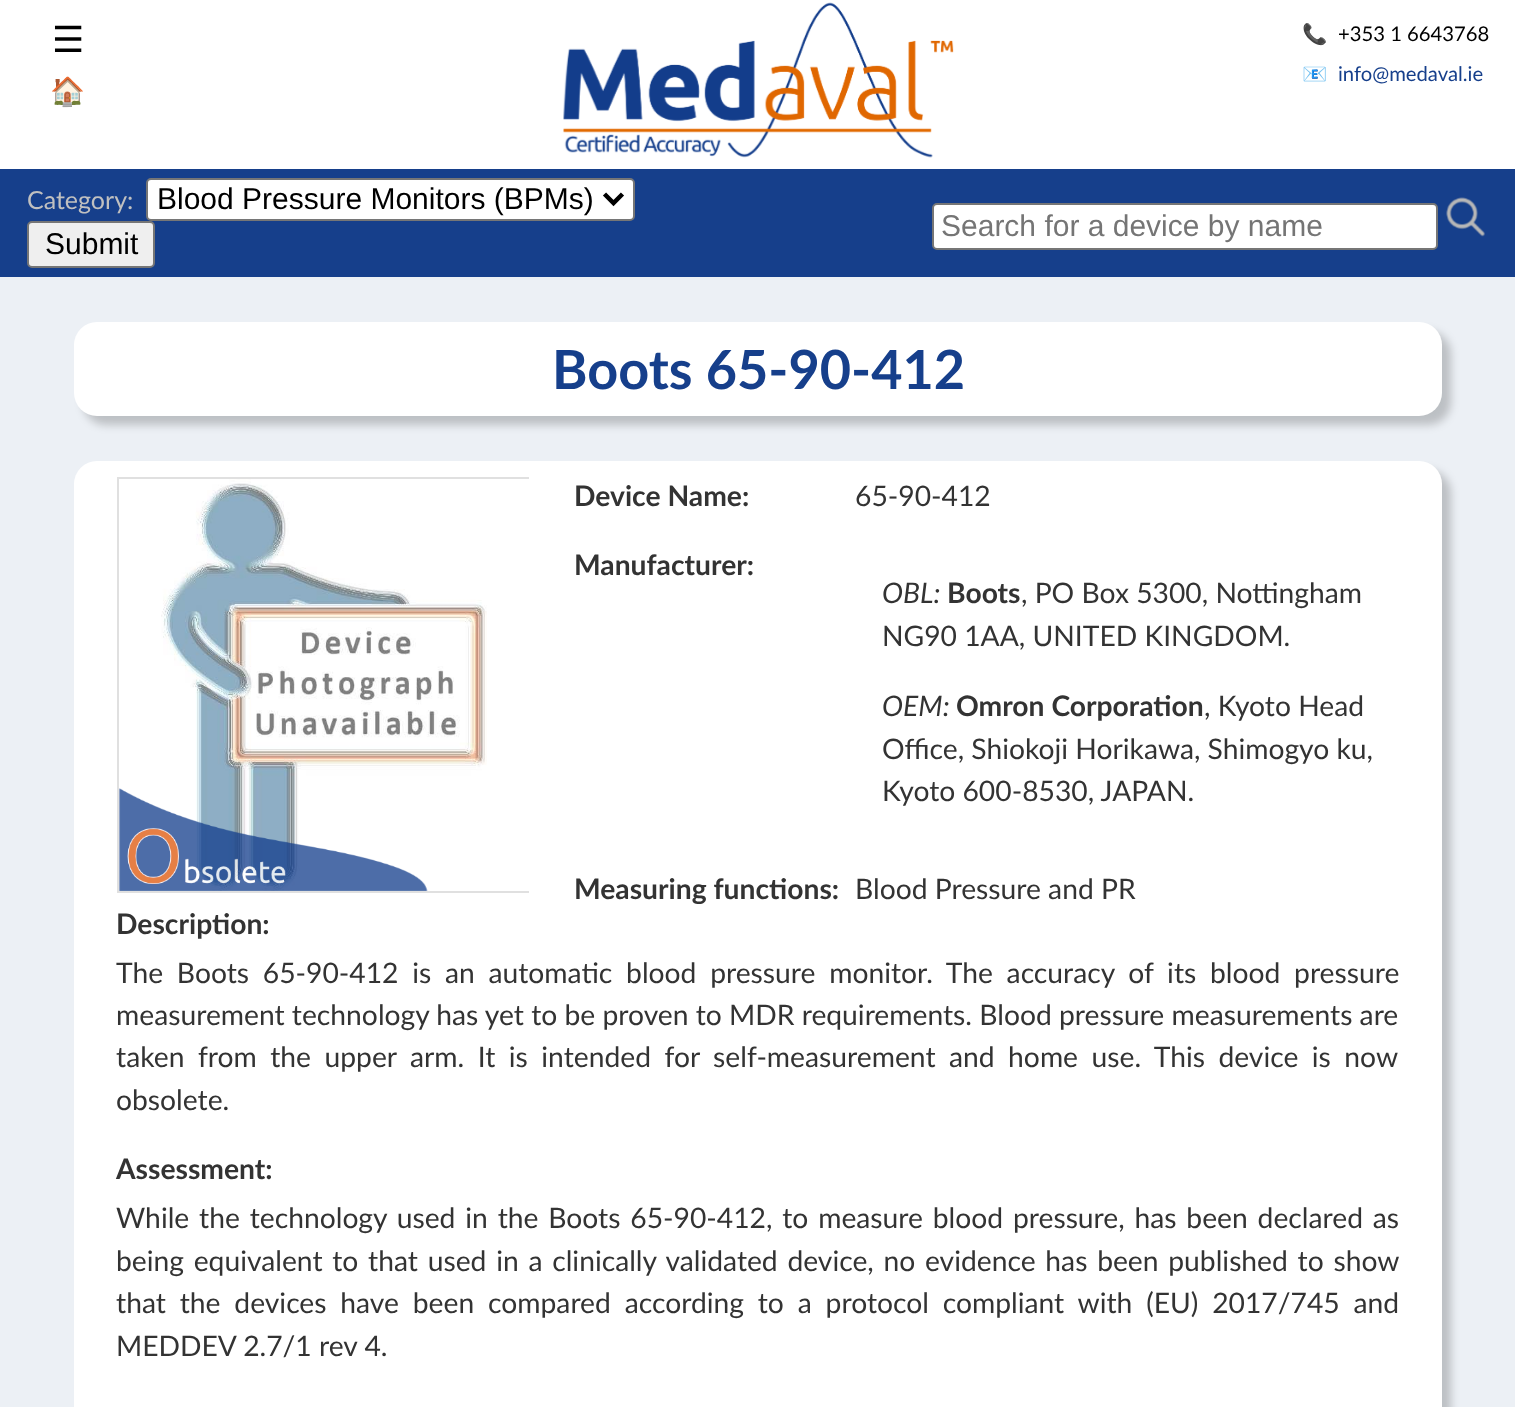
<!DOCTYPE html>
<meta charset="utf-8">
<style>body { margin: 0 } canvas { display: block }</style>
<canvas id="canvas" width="1515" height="1407"></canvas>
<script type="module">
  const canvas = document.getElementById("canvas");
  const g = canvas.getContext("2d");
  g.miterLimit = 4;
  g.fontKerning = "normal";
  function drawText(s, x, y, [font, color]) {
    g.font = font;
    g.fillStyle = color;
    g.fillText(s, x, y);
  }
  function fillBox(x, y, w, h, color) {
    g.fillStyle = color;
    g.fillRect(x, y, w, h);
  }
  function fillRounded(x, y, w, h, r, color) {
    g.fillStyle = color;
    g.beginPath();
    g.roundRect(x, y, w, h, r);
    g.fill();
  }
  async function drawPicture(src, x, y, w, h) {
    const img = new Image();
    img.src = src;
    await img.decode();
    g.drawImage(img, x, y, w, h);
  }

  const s1 = ["36px DejaVu Sans", "#000000"];
  const s2 = ["28.25px Noto Color Emoji", "#163F8B"];
  const s3 = ["20.25px Noto Color Emoji", "#000000"];
  const s4 = ["20.25px Lato", "#000000"];
  const s5 = ["20.25px Noto Color Emoji", "#163F8B"];
  const s6 = ["20.25px Lato", "#163F8B"];
  const s7 = ["25px Lato", "#C0C0C0"];
  const s8 = ["30px Liberation Sans", "#000000"];
  const s9 = ["30px Liberation Sans", "#757575"];
  const s10 = ["bold 54px Lato", "#163F8B"];
  const s11 = ["bold 28.25px Lato", "#333333"];
  const s12 = ["28.25px Lato", "#333333"];
  const s13 = ["italic 28.25px Lato", "#333333"];

  fillBox(0, 0, 1515, 1407, "#FFFFFF");
  drawText("☰", 52, 52, s1);
  drawText("🏠", 50, 101, s2);
  await drawPicture("pic1.png", 563, 2, 391, 156);
  drawText("📞", 1302, 41, s3);
  drawText("+353 1 6643768", 1338, 41, s4);
  drawText("📧", 1302, 81, s5);
  drawText("info@medaval.ie", 1338, 81, s6);
  fillBox(0, 169, 1515, 108, "#163F8B");
  drawText("Category:", 27, 209, s7);
  g.fillStyle = "#FFFFFF";
  g.beginPath();
  g.roundRect(147, 179, 487, 41, 4);
  g.fill();
  g.strokeStyle = "#767676";
  g.lineWidth = 2;
  g.stroke();
  g.beginPath();
  g.moveTo(604.5, 194);
  g.lineTo(613.5, 203);
  g.lineTo(622.5, 194);
  g.strokeStyle = "#000000";
  g.lineWidth = 4.5;
  g.stroke();
  drawText("Blood Pressure Monitors (BPMs)", 157, 209, s8);
  g.fillStyle = "#EFEFEF";
  g.beginPath();
  g.roundRect(28, 222, 126, 45, 4);
  g.fill();
  g.strokeStyle = "#767676";
  g.lineWidth = 2;
  g.stroke();
  drawText("Submit", 45, 254, s8);
  g.fillStyle = "#FFFFFF";
  g.beginPath();
  g.roundRect(933, 204, 504, 45, 4);
  g.fill();
  g.stroke();
  drawText("Search for a device by name", 941, 236, s9);
  await drawPicture("pic2.png", 1446, 197, 39, 40);
  fillBox(0, 277, 1515, 1130, "#ECF0F5");
  g.fillStyle = "rgba(0, 0, 0, 0.2)";
  g.filter = "blur(4.5px)";
  g.beginPath();
  g.roundRect(83, 331, 1368, 94, 23);
  g.fill();
  g.filter = "none";
  fillRounded(74, 322, 1368, 94, 23, "#FFFFFF");
  drawText("Boots 65-90-412", 552, 389, s10);
  g.fillStyle = "rgba(0, 0, 0, 0.2)";
  g.filter = "blur(4.5px)";
  g.beginPath();
  g.roundRect(83, 470, 1368, 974, 23);
  g.fill();
  g.filter = "none";
  fillRounded(74, 461, 1368, 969, 23, "#FFFFFF");
  g.save();
  g.beginPath();
  g.rect(117, 477, 412, 428);
  g.clip();
  g.strokeStyle = "#E0E0E0";
  g.strokeRect(118, 478, 414, 414);
  g.restore();
  await drawPicture("pic3.png", 161, 479, 326, 412);
  await drawPicture("pic4.png", 119, 788, 309, 103);
  drawText("Device Name:", 574, 506, s11);
  drawText("65-90-412", 855, 506, s12);
  drawText("Manufacturer:", 574, 575, s11);
  drawText("OBL:", 882, 603, s13);
  drawText("Boots", 947, 603, s11);
  drawText(", PO Box 5300, Nottingham", 1021, 603, s12);
  drawText("NG90 1AA, UNITED KINGDOM.", 882, 646, s12);
  drawText("OEM:", 882, 716, s13);
  drawText("Omron Corporation", 956, 716, s11);
  drawText(", Kyoto Head", 1204, 716, s12);
  drawText("Office, Shiokoji Horikawa, Shimogyo ku,", 882, 759, s12);
  drawText("Kyoto 600-8530, JAPAN.", 882, 801, s12);
  drawText("Measuring functions:", 574, 899, s11);
  drawText("Blood Pressure and PR", 855, 899, s12);
  drawText("Description:", 116, 934, s11);
  g.wordSpacing = "6.5px";
  drawText("The Boots 65-90-412 is an automatic blood pressure monitor. The accuracy of its blood pressure", 116, 983, s12);
  g.wordSpacing = "0px";
  drawText("measurement technology has yet to be proven to MDR requirements. Blood pressure measurements are", 116, 1025, s12);
  g.wordSpacing = "6.25px";
  drawText("taken from the upper arm. It is intended for self-measurement and home use. This device is now", 116, 1067, s12);
  g.wordSpacing = "0px";
  drawText("obsolete.", 116, 1110, s12);
  drawText("Assessment:", 116, 1179, s11);
  g.wordSpacing = "2.6px";
  drawText("While the technology used in the Boots 65-90-412, to measure blood pressure, has been declared as", 116, 1228, s12);
  g.wordSpacing = "2.5px";
  drawText("being equivalent to that used in a clinically validated device, no evidence has been published to show", 116, 1271, s12);
  g.wordSpacing = "6.6px";
  drawText("that the devices have been compared according to a protocol compliant with (EU) 2017/745 and", 116, 1313, s12);
  g.wordSpacing = "0px";
  drawText("MEDDEV 2.7/1 rev 4.", 116, 1356, s12);
</script>
